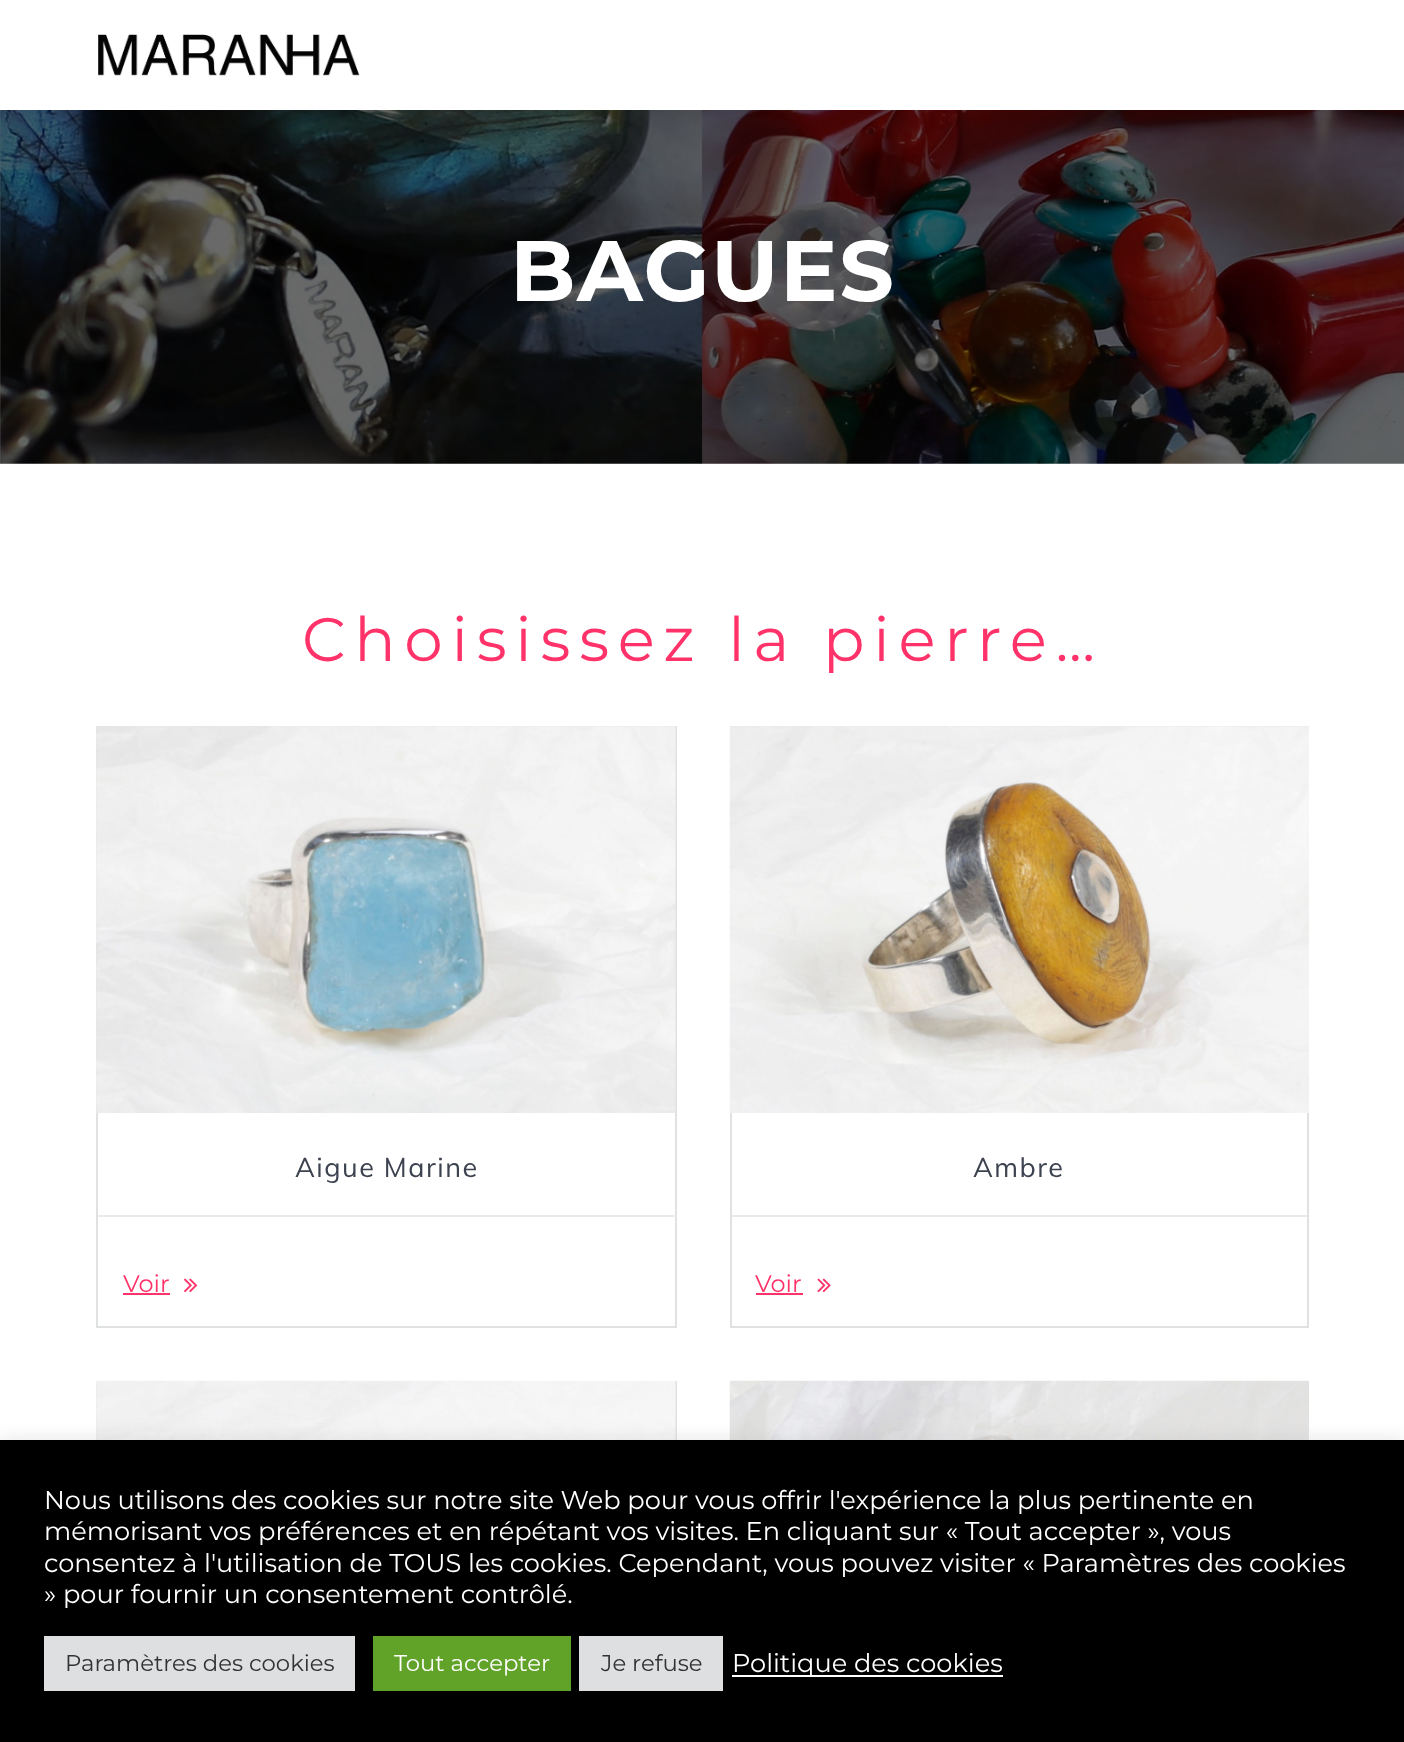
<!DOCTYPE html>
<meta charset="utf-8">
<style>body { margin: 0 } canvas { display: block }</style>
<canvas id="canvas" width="1404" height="1742"></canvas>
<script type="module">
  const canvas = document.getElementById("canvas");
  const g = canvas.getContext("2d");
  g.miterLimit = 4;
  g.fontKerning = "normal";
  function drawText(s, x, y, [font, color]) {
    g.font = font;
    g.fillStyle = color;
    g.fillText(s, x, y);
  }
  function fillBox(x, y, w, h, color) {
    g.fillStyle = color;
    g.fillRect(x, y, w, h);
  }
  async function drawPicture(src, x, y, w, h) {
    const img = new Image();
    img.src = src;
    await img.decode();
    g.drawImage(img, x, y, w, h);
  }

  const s1 = ["bold 85.75px Montserrat", "#FFFFFF"];
  const s2 = ["61.25px Montserrat", "#FF3369"];
  const s3 = ["27px Muli", "#3C424F"];
  const s4 = ["24px Montserrat", "#FF3369"];
  const s5 = ["25.67px Montserrat", "#FFFFFF"];
  const s6 = ["22.75px Montserrat", "#333333"];
  const s7 = ["22.75px Montserrat", "#FFFFFF"];

  fillBox(0, 0, 1404, 1742, "#FFFFFF");
  await drawPicture("pic1.png", 98, 34, 262, 42);
  await drawPicture("pic2.png", 0, 110, 1404, 354);
  g.letterSpacing = "1.5px";
  drawText("BAGUES", 510, 301, s1);
  g.letterSpacing = "8.75px";
  drawText("Choisissez la pierre…", 302, 661, s2);
  g.strokeStyle = "#E0E1E1";
  g.lineWidth = 2;
  g.strokeRect(97, 727, 579, 600);
  await drawPicture("pic3.png", 96, 726, 580, 387);
  g.letterSpacing = "1.5px";
  drawText("Aigue Marine", 295, 1177, s3);
  fillBox(98, 1215, 578, 2, "#EAEAEA");
  g.letterSpacing = "0px";
  drawText("Voir", 123, 1292, s4);
  fillBox(123, 1293, 47, 2, "#FF3369");
  await drawPicture("pic4.png", 184, 1278, 14, 15);
  g.strokeRect(731, 727, 577, 600);
  await drawPicture("pic5.png", 729, 726, 580, 387);
  g.letterSpacing = "1.5px";
  drawText("Ambre", 973, 1177, s3);
  fillBox(732, 1215, 575, 2, "#EAEAEA");
  g.letterSpacing = "0px";
  drawText("Voir", 755, 1292, s4);
  fillBox(756, 1293, 47, 2, "#FF3369");
  await drawPicture("pic6.png", 817, 1278, 14, 15);
  g.strokeRect(97, 1382, 579, 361);
  await drawPicture("pic7.png", 96, 1380, 580, 60);
  await drawPicture("pic8.png", 729, 1380, 580, 60);
  g.fillStyle = "rgba(172, 171, 171, 0.3)";
  g.filter = "blur(9px)";
  g.beginPath();
  g.rect(0, 1439, 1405, 302);
  g.fill();
  g.filter = "none";
  fillBox(0, 1440, 1404, 302, "#000000");
  drawText("Nous utilisons des cookies sur notre site Web pour vous offrir l'expérience la plus pertinente en", 44, 1509, s5);
  drawText("mémorisant vos préférences et en répétant vos visites. En cliquant sur « Tout accepter », vous", 44, 1540, s5);
  drawText("consentez à l'utilisation de TOUS les cookies. Cependant, vous pouvez visiter « Paramètres des cookies", 44, 1572, s5);
  drawText("» pour fournir un consentement contrôlé.", 44, 1603, s5);
  fillBox(44, 1636, 311, 55, "#DEDFE0");
  drawText("Paramètres des cookies", 65, 1671, s6);
  fillBox(373, 1636, 198, 55, "#61A229");
  drawText("Tout accepter", 394, 1671, s7);
  fillBox(579, 1636, 144, 55, "#DEDFE0");
  drawText("Je refuse", 601, 1671, s6);
  fillBox(732, 1675, 271, 2, "#FFFFFF");
  drawText("Politique des cookies", 732, 1672, s5);
</script>
